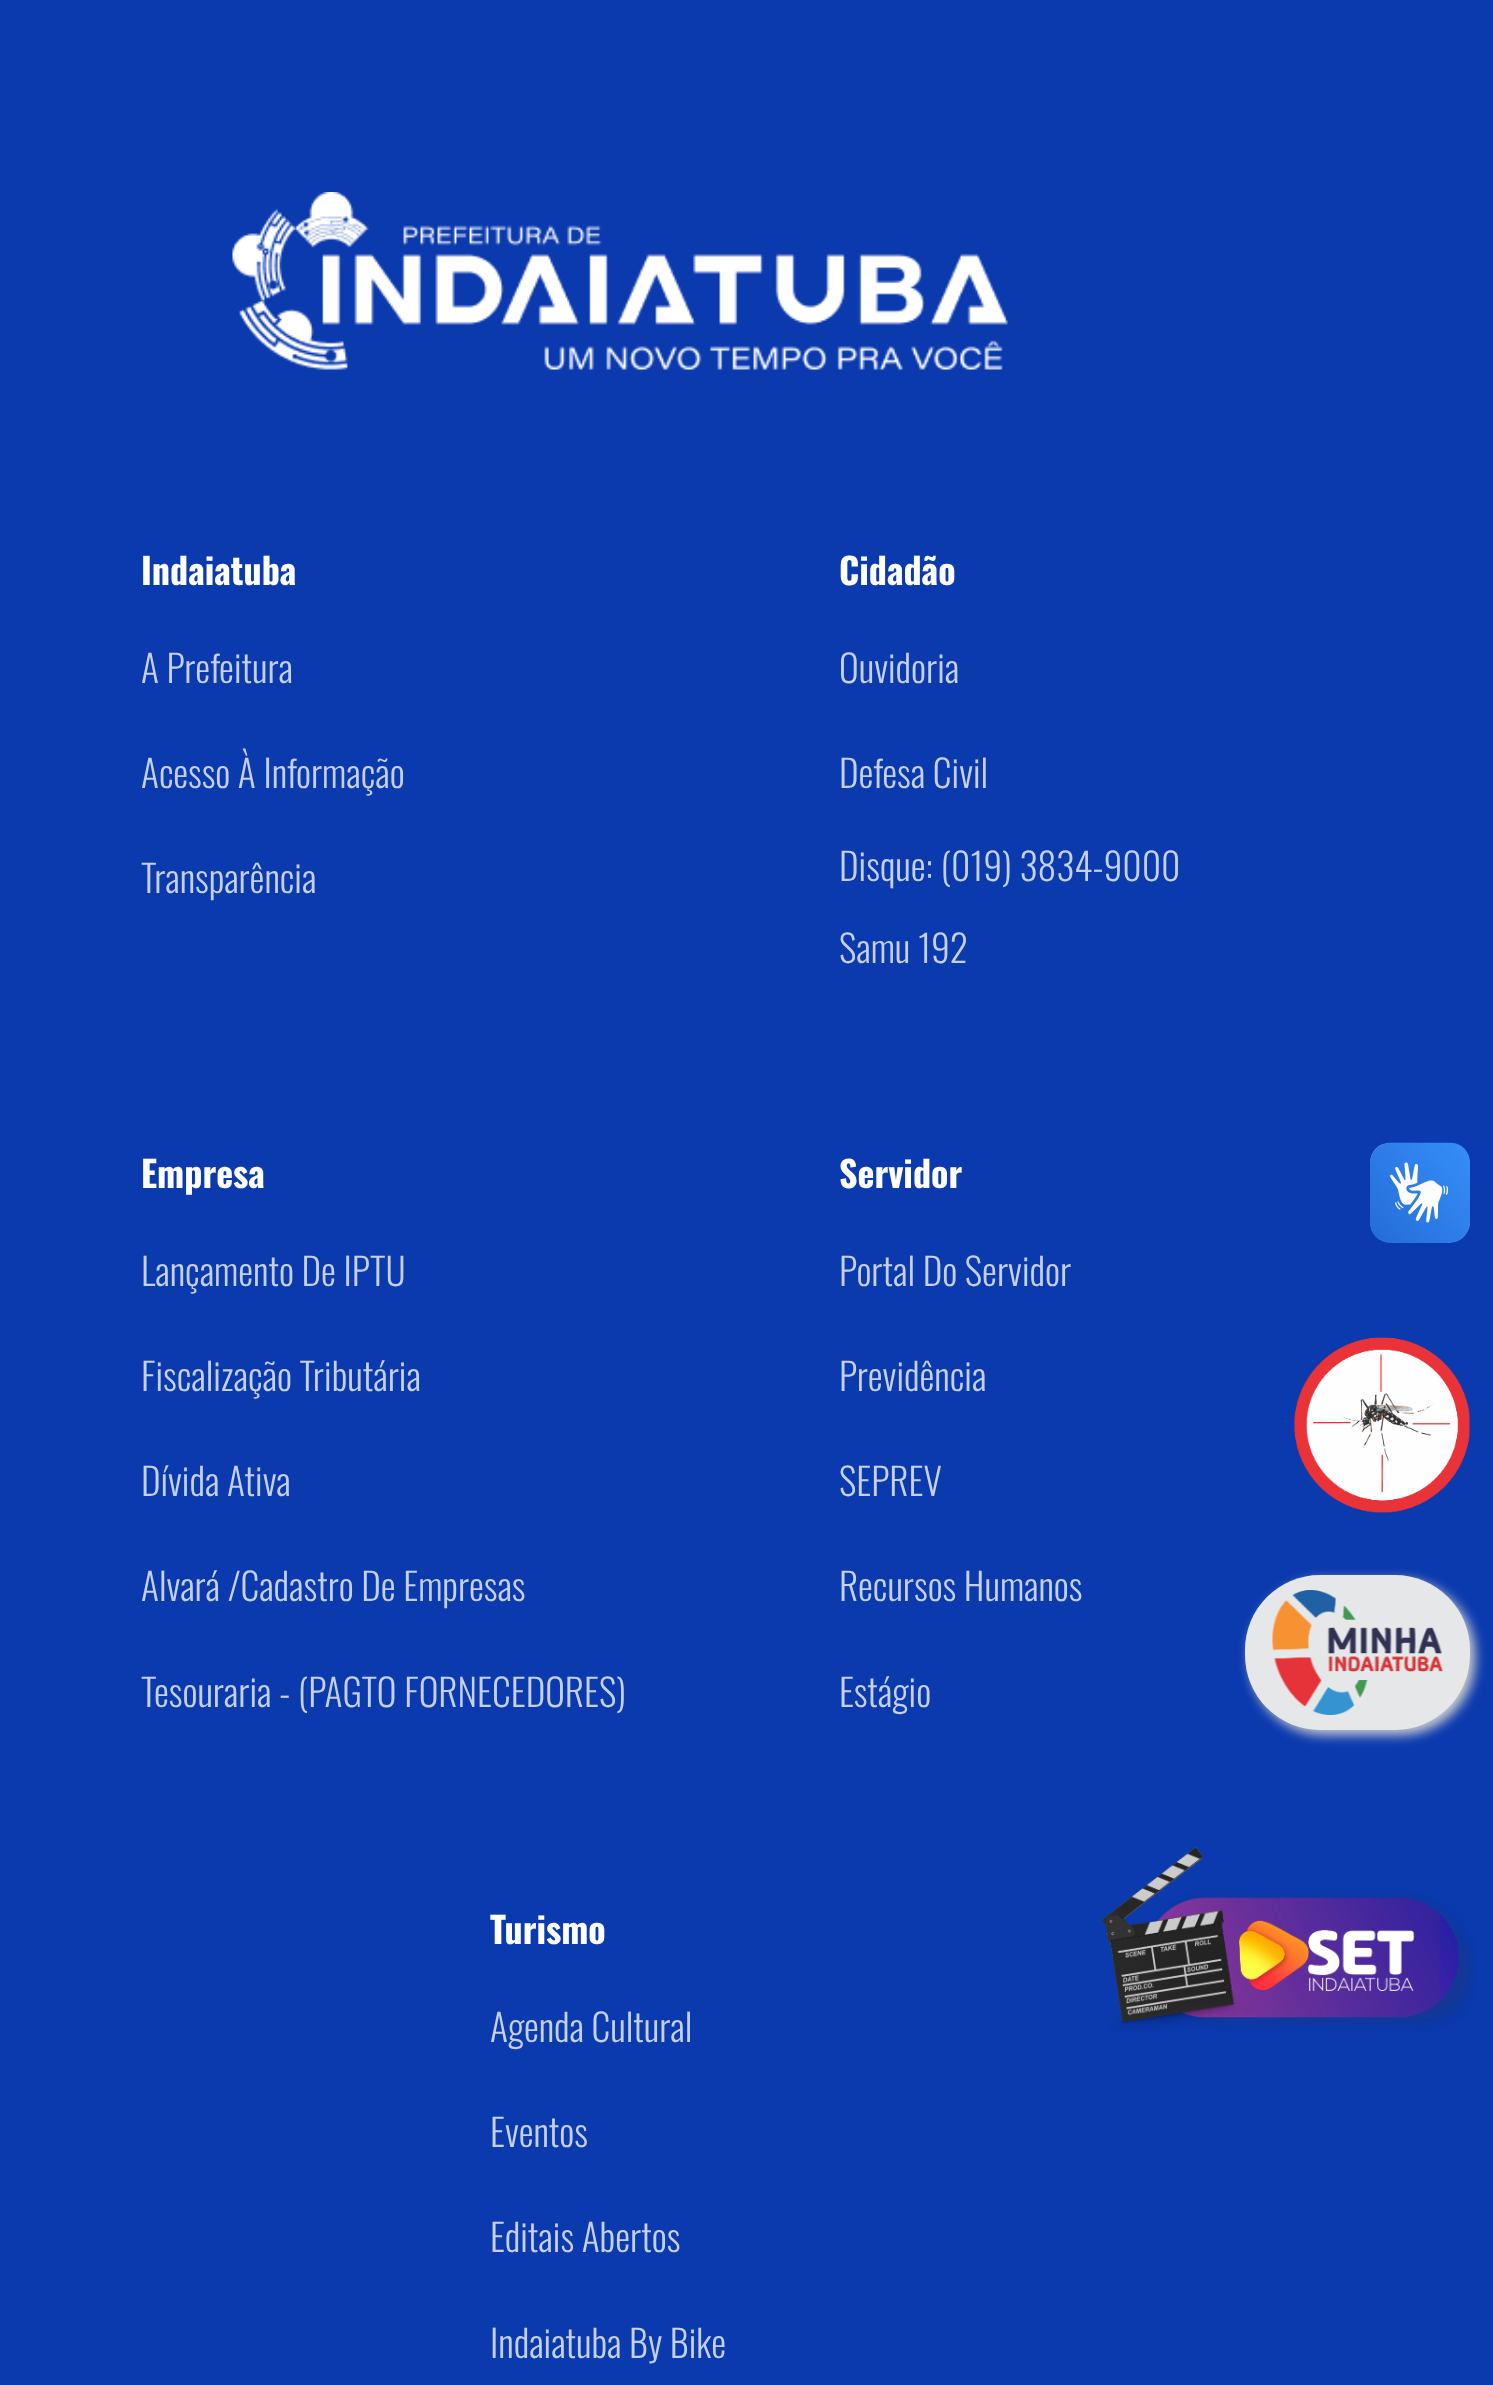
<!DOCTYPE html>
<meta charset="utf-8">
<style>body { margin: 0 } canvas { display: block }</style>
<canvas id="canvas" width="1493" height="2385"></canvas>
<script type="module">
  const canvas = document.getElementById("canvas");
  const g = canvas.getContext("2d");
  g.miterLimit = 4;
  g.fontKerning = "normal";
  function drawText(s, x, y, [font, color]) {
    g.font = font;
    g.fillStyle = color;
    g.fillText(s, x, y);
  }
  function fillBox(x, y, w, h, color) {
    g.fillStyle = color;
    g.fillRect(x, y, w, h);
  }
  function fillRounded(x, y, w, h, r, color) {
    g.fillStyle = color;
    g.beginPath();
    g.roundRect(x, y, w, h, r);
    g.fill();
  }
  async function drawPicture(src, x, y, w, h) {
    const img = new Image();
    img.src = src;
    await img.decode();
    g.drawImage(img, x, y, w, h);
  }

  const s1 = ["bold 36px Oswald", "#FFFFFF"];
  const s2 = ["300 37.5px Oswald", "#C4D0EC"];

  fillBox(0, 0, 1493, 2385, "#0B3AAF");
  await drawPicture("pic1.png", 232, 192, 776, 178);
  drawText("Indaiatuba", 141, 585, s1);
  drawText("A Prefeitura", 141, 683, s2);
  drawText("Acesso À Informação", 141, 788, s2);
  drawText("Transparência", 141, 893, s2);
  drawText("Cidadão", 839, 585, s1);
  drawText("Ouvidoria", 839, 683, s2);
  drawText("Defesa Civil", 839, 788, s2);
  drawText("Disque: (019) 3834-9000", 839, 881, s2);
  drawText("Samu 192", 839, 963, s2);
  drawText("Empresa", 141, 1188, s1);
  drawText("Lançamento De IPTU", 141, 1286, s2);
  drawText("Fiscalização Tributária", 141, 1391, s2);
  drawText("Dívida Ativa", 141, 1496, s2);
  drawText("Alvará /Cadastro De Empresas", 141, 1601, s2);
  drawText("Tesouraria - (PAGTO FORNECEDORES)", 141, 1707, s2);
  drawText("Servidor", 839, 1188, s1);
  drawText("Portal Do Servidor", 839, 1286, s2);
  drawText("Previdência", 839, 1391, s2);
  drawText("SEPREV", 839, 1496, s2);
  drawText("Recursos Humanos", 839, 1601, s2);
  drawText("Estágio", 839, 1707, s2);
  drawText("Turismo", 490, 1944, s1);
  drawText("Agenda Cultural", 490, 2042, s2);
  drawText("Eventos", 490, 2147, s2);
  drawText("Editais Abertos", 490, 2252, s2);
  drawText("Indaiatuba By Bike", 490, 2358, s2);
  await drawPicture("pic2.png", 1370, 1142, 100, 101);
  await drawPicture("pic3.png", 1370, 1143, 100, 100);
  await drawPicture("pic4.png", 1285, 1337, 185, 176);
  g.fillStyle = "#CCCCCC";
  g.filter = "blur(6px)";
  g.beginPath();
  g.roundRect(1250, 1580, 225, 155, 75);
  g.fill();
  g.filter = "none";
  fillRounded(1245, 1575, 225, 155, 75, "#E6E7E8");
  await drawPicture("pic5.png", 1272, 1590, 171, 125);
  await drawPicture("pic6.png", 1101, 1847, 376, 186);
</script>
